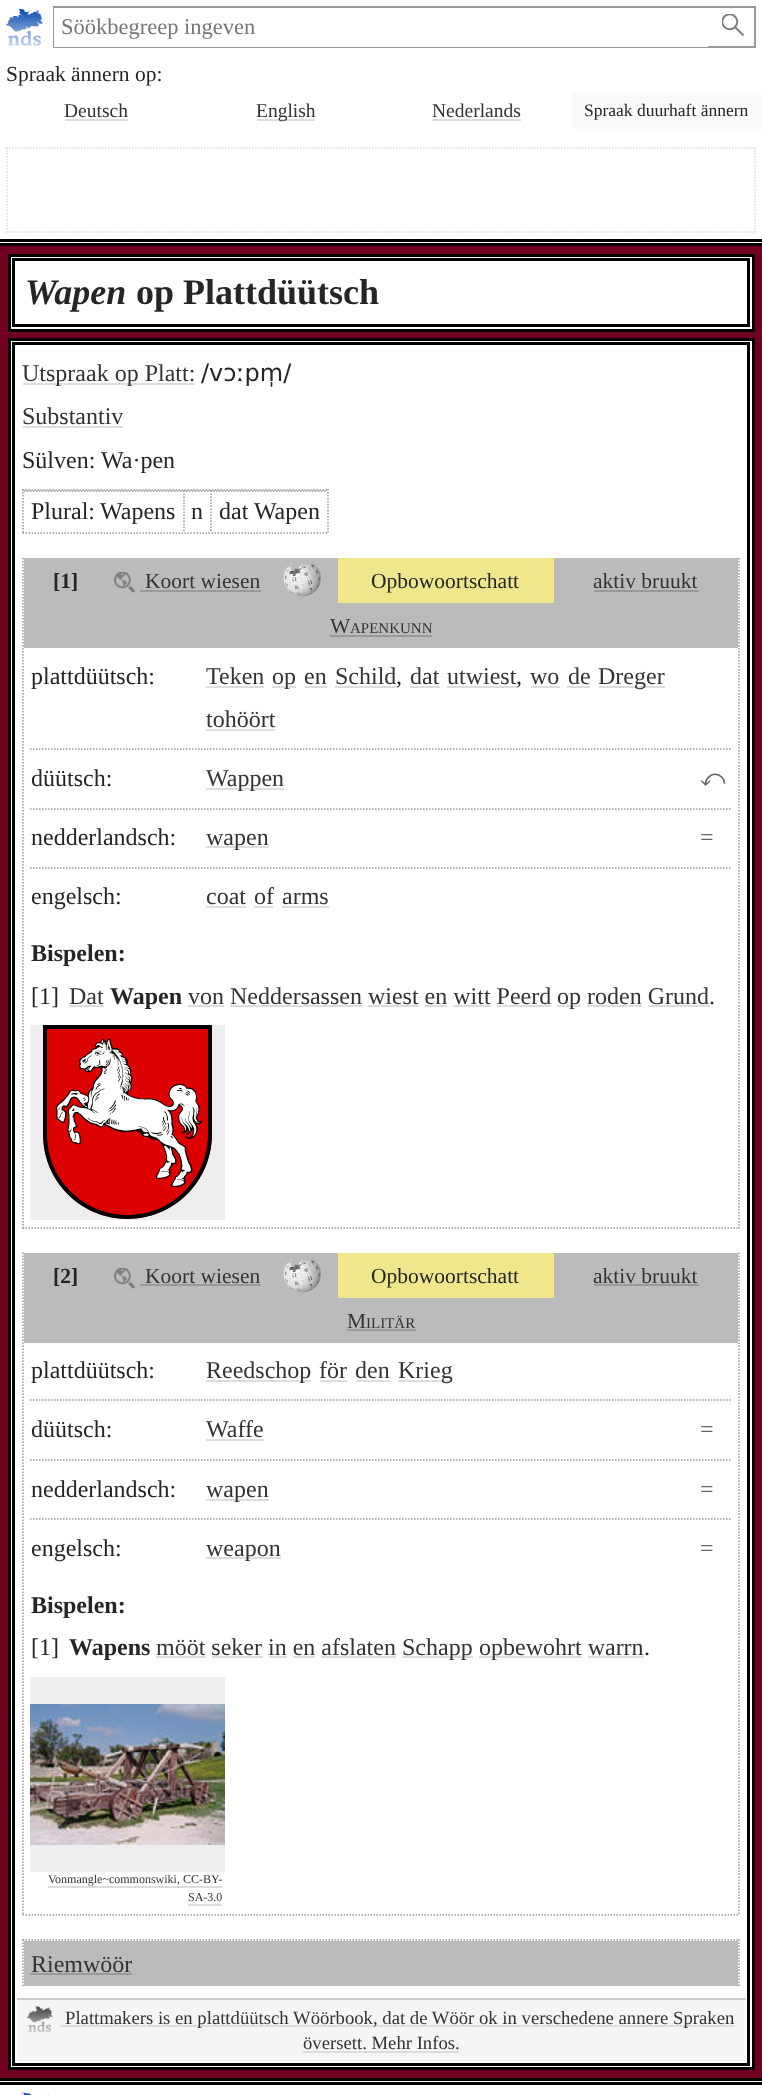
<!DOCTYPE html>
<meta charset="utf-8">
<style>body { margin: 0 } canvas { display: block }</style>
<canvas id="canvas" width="762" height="2095"></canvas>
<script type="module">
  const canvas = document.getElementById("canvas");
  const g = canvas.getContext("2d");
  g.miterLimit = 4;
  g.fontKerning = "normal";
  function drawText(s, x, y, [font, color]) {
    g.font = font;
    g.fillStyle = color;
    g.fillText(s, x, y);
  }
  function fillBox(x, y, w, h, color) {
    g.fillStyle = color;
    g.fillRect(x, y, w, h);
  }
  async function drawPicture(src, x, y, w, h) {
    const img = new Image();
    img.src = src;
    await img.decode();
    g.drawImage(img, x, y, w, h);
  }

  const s1 = ["22.5px Liberation Serif", "#757575"];
  const s2 = ["21.5px Liberation Serif", "#252525"];
  const s3 = ["19.5px Liberation Serif", "#333333"];
  const s4 = ["17.5px Liberation Serif", "#252525"];
  const s5 = ["italic bold 36px Liberation Serif", "#252525"];
  const s6 = ["bold 36px Liberation Serif", "#252525"];
  const s7 = ["24px Liberation Serif", "#333333"];
  const s8 = ["24px DejaVu Sans", "#252525"];
  const s9 = ["24px Liberation Serif", "#252525"];
  const s10 = ["bold 21.5px Liberation Serif", "#252525"];
  const s11 = ["21.5px Liberation Serif", "#333333"];
  const s12 = ["15px Liberation Serif", "#333333"];
  const s13 = ["24px FreeSerif", "#666666"];
  const s14 = ["24px Liberation Serif", "#666666"];
  const s15 = ["bold 24px Liberation Serif", "#252525"];
  const s16 = ["12px Liberation Serif", "#333333"];
  const s17 = ["18.7px Liberation Serif", "#333333"];

  fillBox(0, 0, 762, 2095, "#700020");
  fillBox(0, 0, 762, 243, "#FFFFFF");
  fillBox(0, 239, 762, 3, "#000000");
  fillBox(0, 243, 762, 3, "#000000");
  await drawPicture("pic1.png", 6, 8, 37, 38);
  g.strokeStyle = "#999999";
  g.lineWidth = 2;
  g.strokeRect(54, 7, 701, 40);
  fillBox(54, 8, 654, 39, "#FFFFFF");
  drawText("Söökbegreep ingeven", 61, 34, s1);
  g.save();
  g.beginPath();
  g.rect(722, 14, 24, 24);
  g.clip();
  g.beginPath();
  g.moveTo(735, 27);
  g.bezierCurveTo(742, 20, 731.5, 9.5, 724.5, 16.5);
  g.bezierCurveTo(717.5, 23.5, 728, 34, 735, 27);
  g.lineTo(743.5, 35.5);
  g.strokeStyle = "#808080";
  g.stroke();
  g.restore();
  drawText("Spraak ännern op:", 6, 81, s2);
  drawText("Deutsch", 64, 117, s3);
  fillBox(65, 119, 63, 2, "#DDDDDD");
  fillBox(257, 119, 58, 2, "#DDDDDD");
  drawText("English", 256, 117, s3);
  drawText("Nederlands", 432, 117, s3);
  fillBox(432, 119, 89, 2, "#DDDDDD");
  fillBox(572, 93, 190, 36, "#FAFAFA");
  drawText("Spraak duurhaft ännern", 584, 116, s4);
  g.beginPath();
  g.moveTo(6, 148);
  g.lineTo(756, 148);
  g.strokeStyle = "#DDDDDD";
  g.lineWidth = 1.5;
  g.setLineDash([1.5, 1.5]);
  g.stroke();
  g.beginPath();
  g.moveTo(755, 147);
  g.lineTo(755, 232.5);
  g.stroke();
  g.beginPath();
  g.moveTo(6, 232);
  g.lineTo(756, 232);
  g.stroke();
  g.beginPath();
  g.moveTo(7, 147);
  g.lineTo(7, 232.5);
  g.stroke();
  g.fillStyle = "#FFFFFF";
  g.beginPath();
  g.rect(9.5, 255.5, 744, 75);
  g.fill();
  g.strokeStyle = "#000000";
  g.lineWidth = 3;
  g.setLineDash([]);
  g.stroke();
  g.strokeRect(13.5, 259.5, 735, 66);
  drawText("Wapen", 25, 304, s5);
  drawText("op Plattdüütsch", 136, 304, s6);
  g.fillStyle = "#FFFFFF";
  g.beginPath();
  g.rect(9.5, 339.5, 744, 1729);
  g.fill();
  g.stroke();
  g.strokeRect(13.5, 343.5, 735, 1721);
  fillBox(23, 383, 172, 2, "#DDDDDD");
  drawText("Utspraak op Platt:", 22, 381, s7);
  drawText("/vɔːpm̩/", 201, 381, s8);
  drawText("Substantiv", 22, 424, s7);
  fillBox(23, 426, 100, 2, "#DDDDDD");
  drawText("Sülven:", 22, 468, s9);
  drawText("Wa·pen", 101, 468, s9);
  g.beginPath();
  g.moveTo(22.5, 490);
  g.lineTo(328.5, 490);
  g.strokeStyle = "#999999";
  g.lineWidth = 1.5;
  g.setLineDash([1.5, 1.5]);
  g.stroke();
  g.beginPath();
  g.moveTo(328, 489);
  g.lineTo(328, 534);
  g.stroke();
  g.beginPath();
  g.moveTo(22.5, 533);
  g.lineTo(328.5, 533);
  g.stroke();
  g.beginPath();
  g.moveTo(23, 489);
  g.lineTo(23, 534);
  g.stroke();
  g.beginPath();
  g.moveTo(24, 491);
  g.lineTo(327, 491);
  g.stroke();
  drawText("Plural:", 31, 519, s9);
  drawText("Wapens", 100, 519, s9);
  g.beginPath();
  g.moveTo(184, 490.5);
  g.lineTo(184, 532.5);
  g.moveTo(211, 490.5);
  g.lineTo(211, 532.5);
  g.stroke();
  drawText("n", 191, 519, s9);
  drawText("dat Wapen", 219, 519, s9);
  g.beginPath();
  g.moveTo(739, 558);
  g.lineTo(739, 1228.5);
  g.stroke();
  g.beginPath();
  g.moveTo(22.5, 1228);
  g.lineTo(739.5, 1228);
  g.stroke();
  g.beginPath();
  g.moveTo(23, 558);
  g.lineTo(23, 1228.5);
  g.stroke();
  fillBox(24, 558, 714, 90, "#BBBBBB");
  drawText("[1]", 53, 588, s10);
  await drawPicture("pic2.png", 114, 572, 21, 21);
  drawText("Koort wiesen", 145, 588, s11);
  fillBox(140, 590, 121, 2, "#999999");
  await drawPicture("pic3.png", 283, 563, 38, 34);
  fillBox(338, 558, 216, 45, "#F0E68C");
  drawText("Opbowoortschatt", 371, 588, s2);
  drawText("aktiv bruukt", 593, 588, s11);
  fillBox(594, 590, 105, 2, "#999999");
  drawText("W", 330, 633, s11);
  drawText("APENKUNN", 350, 633, s12);
  fillBox(330, 635, 102, 2, "#999999");
  drawText("plattdüütsch:", 31, 684, s9);
  drawText("Teken", 206, 684, s7);
  fillBox(206, 686, 58, 2, "#DDDDDD");
  fillBox(272, 686, 24, 2, "#DDDDDD");
  drawText("op", 272, 684, s7);
  drawText("en", 304, 684, s7);
  fillBox(305, 686, 22, 2, "#DDDDDD");
  drawText("Schild", 335, 684, s7);
  fillBox(335, 686, 61, 2, "#DDDDDD");
  drawText(",", 396, 684, s9);
  drawText("dat", 410, 684, s7);
  fillBox(410, 686, 30, 2, "#DDDDDD");
  drawText("utwiest", 447, 684, s7);
  fillBox(447, 686, 69, 2, "#DDDDDD");
  drawText(",", 516, 684, s9);
  drawText("wo", 530, 684, s7);
  fillBox(531, 686, 29, 2, "#DDDDDD");
  drawText("de", 568, 684, s7);
  fillBox(567, 686, 23, 2, "#DDDDDD");
  fillBox(599, 686, 66, 2, "#DDDDDD");
  drawText("Dreger", 598, 684, s7);
  drawText("tohöört", 206, 727, s7);
  fillBox(206, 729, 69, 2, "#DDDDDD");
  g.beginPath();
  g.moveTo(30, 749);
  g.lineTo(732, 749);
  g.stroke();
  drawText("düütsch:", 31, 786, s9);
  fillBox(206, 788, 78, 2, "#DDDDDD");
  drawText("Wappen", 206, 786, s7);
  drawText("⤺", 700, 786, s13);
  g.beginPath();
  g.moveTo(30, 809);
  g.lineTo(732, 809);
  g.stroke();
  drawText("nedderlandsch:", 31, 845, s9);
  fillBox(206, 846, 63, 2, "#DDDDDD");
  drawText("wapen", 206, 845, s7);
  drawText("=", 700, 845, s14);
  g.beginPath();
  g.moveTo(30, 868);
  g.lineTo(732, 868);
  g.stroke();
  drawText("engelsch:", 31, 904, s9);
  drawText("coat", 206, 904, s7);
  fillBox(206, 906, 40, 2, "#DDDDDD");
  drawText("of", 254, 904, s7);
  fillBox(254, 906, 19, 2, "#DDDDDD");
  drawText("arms", 282, 904, s7);
  fillBox(282, 906, 47, 2, "#DDDDDD");
  drawText("Bispelen:", 31, 961, s15);
  drawText("[1]", 31, 1004, s9);
  drawText("Dat", 69, 1004, s7);
  fillBox(69, 1005, 35, 2, "#DDDDDD");
  drawText("Wapen", 110, 1004, s15);
  drawText("von Neddersassen wiest en witt Peerd", 188, 1004, s7);
  fillBox(188, 1005, 36, 2, "#DDDDDD");
  fillBox(557, 1005, 24, 2, "#DDDDDD");
  drawText("op roden Grund", 557, 1004, s7);
  drawText(".", 709, 1004, s9);
  fillBox(230, 1005, 132, 2, "#DDDDDD");
  fillBox(368, 1005, 51, 2, "#DDDDDD");
  fillBox(425, 1005, 22, 2, "#DDDDDD");
  fillBox(453, 1005, 38, 2, "#DDDDDD");
  fillBox(497, 1005, 54, 2, "#DDDDDD");
  fillBox(587, 1005, 55, 2, "#DDDDDD");
  fillBox(648, 1005, 62, 2, "#DDDDDD");
  fillBox(30, 1025, 195, 195, "#EEEEEE");
  await drawPicture("pic4.png", 43, 1025, 169, 194);
  g.beginPath();
  g.moveTo(739, 1252.5);
  g.lineTo(739, 1915.5);
  g.stroke();
  g.beginPath();
  g.moveTo(22.5, 1915);
  g.lineTo(739.5, 1915);
  g.stroke();
  g.beginPath();
  g.moveTo(23, 1252.5);
  g.lineTo(23, 1915.5);
  g.stroke();
  fillBox(24, 1253, 714, 90, "#BBBBBB");
  drawText("[2]", 53, 1283, s10);
  await drawPicture("pic2.png", 114, 1268, 21, 21);
  drawText("Koort wiesen", 145, 1283, s11);
  fillBox(140, 1284, 121, 2, "#999999");
  await drawPicture("pic3.png", 283, 1259, 38, 34);
  fillBox(338, 1253, 216, 45, "#F0E68C");
  drawText("Opbowoortschatt", 371, 1283, s2);
  drawText("aktiv bruukt", 593, 1283, s11);
  fillBox(594, 1284, 105, 2, "#999999");
  drawText("M", 347, 1328, s11);
  drawText("ILITÄR", 366, 1328, s12);
  fillBox(347, 1329, 69, 2, "#999999");
  drawText("plattdüütsch:", 31, 1378, s9);
  fillBox(206, 1380, 105, 2, "#DDDDDD");
  drawText("Reedschop", 206, 1378, s7);
  drawText("för", 319, 1378, s7);
  fillBox(320, 1380, 27, 2, "#DDDDDD");
  drawText("den", 355, 1378, s7);
  fillBox(356, 1380, 34, 2, "#DDDDDD");
  fillBox(398, 1380, 54, 2, "#DDDDDD");
  drawText("Krieg", 398, 1378, s7);
  g.beginPath();
  g.moveTo(30, 1400);
  g.lineTo(732, 1400);
  g.stroke();
  drawText("düütsch:", 31, 1437, s9);
  drawText("Waffe", 206, 1437, s7);
  fillBox(206, 1439, 58, 2, "#DDDDDD");
  drawText("=", 700, 1437, s14);
  g.beginPath();
  g.moveTo(30, 1460);
  g.lineTo(732, 1460);
  g.stroke();
  drawText("nedderlandsch:", 31, 1497, s9);
  fillBox(206, 1499, 63, 2, "#DDDDDD");
  drawText("wapen", 206, 1497, s7);
  drawText("=", 700, 1497, s14);
  g.beginPath();
  g.moveTo(30, 1519);
  g.lineTo(732, 1519);
  g.stroke();
  drawText("engelsch:", 31, 1556, s9);
  fillBox(206, 1557, 75, 2, "#DDDDDD");
  drawText("weapon", 206, 1556, s7);
  drawText("=", 700, 1556, s14);
  drawText("Bispelen:", 31, 1613, s15);
  drawText("[1]", 31, 1655, s9);
  drawText("Wapens", 69, 1655, s15);
  drawText("mööt seker in en afslaten", 156, 1655, s7);
  fillBox(156, 1656, 50, 2, "#DDDDDD");
  fillBox(402, 1656, 71, 2, "#DDDDDD");
  drawText("Schapp", 402, 1655, s7);
  fillBox(479, 1656, 103, 2, "#DDDDDD");
  drawText("opbewohrt warrn", 479, 1655, s7);
  drawText(".", 644, 1655, s9);
  fillBox(212, 1656, 51, 2, "#DDDDDD");
  fillBox(269, 1656, 18, 2, "#DDDDDD");
  fillBox(293, 1656, 22, 2, "#DDDDDD");
  fillBox(321, 1656, 75, 2, "#DDDDDD");
  fillBox(588, 1656, 56, 2, "#DDDDDD");
  fillBox(30, 1677, 195, 195, "#EEEEEE");
  await drawPicture("pic5.png", 30, 1704, 195, 141);
  drawText("Vonmangle~commonswiki, CC-BY-", 48, 1883, s16);
  fillBox(48, 1886, 174, 2, "#DDDDDD");
  drawText("SA-3.0", 188, 1901, s16);
  fillBox(188, 1904, 34, 2, "#DDDDDD");
  g.beginPath();
  g.moveTo(22.5, 1940);
  g.lineTo(739.5, 1940);
  g.stroke();
  g.beginPath();
  g.moveTo(739, 1939.5);
  g.lineTo(739, 1986);
  g.stroke();
  g.beginPath();
  g.moveTo(23, 1939.5);
  g.lineTo(23, 1986);
  g.stroke();
  fillBox(24, 1941, 714, 45, "#BBBBBB");
  drawText("Riemwöör", 31, 1972, s7);
  fillBox(30, 1973, 102, 2, "#999999");
  fillBox(17, 2000, 729, 61, "#F5F5F5");
  fillBox(17, 1998, 729, 2, "#CCCCCC");
  await drawPicture("pic6.png", 27, 2006, 26, 26);
  fillBox(60, 2025, 675, 2, "#DDDDDD");
  drawText("Plattmakers is en plattdüütsch Wöörbook, dat de Wöör ok in verschedene annere Spraken", 65, 2024, s17);
  drawText("översett. Mehr Infos.", 303, 2049, s17);
  fillBox(303, 2051, 156, 2, "#DDDDDD");
  fillBox(0, 2081, 762, 14, "#FFFFFF");
  fillBox(0, 2078, 762, 3, "#000000");
  fillBox(0, 2082, 762, 3, "#000000");
  await drawPicture("pic7.png", 21, 2091, 28, 4);
</script>
